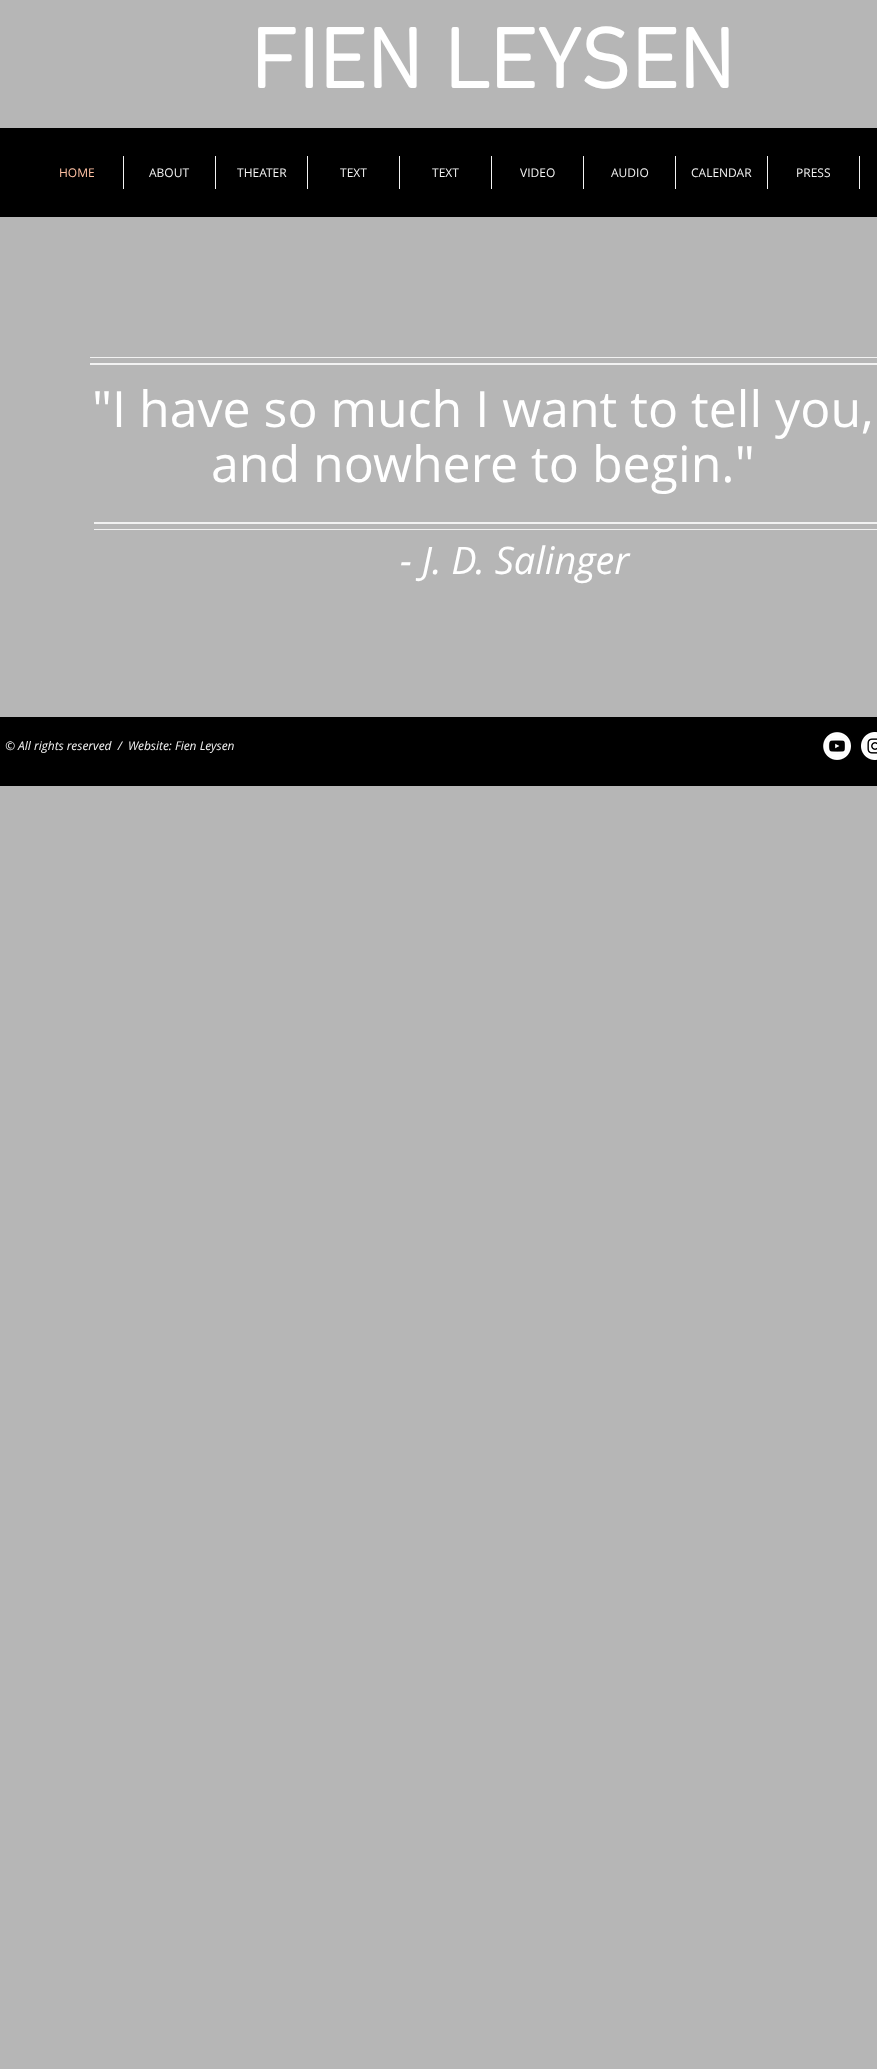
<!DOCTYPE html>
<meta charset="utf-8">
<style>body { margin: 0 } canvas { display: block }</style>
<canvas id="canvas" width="877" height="2069"></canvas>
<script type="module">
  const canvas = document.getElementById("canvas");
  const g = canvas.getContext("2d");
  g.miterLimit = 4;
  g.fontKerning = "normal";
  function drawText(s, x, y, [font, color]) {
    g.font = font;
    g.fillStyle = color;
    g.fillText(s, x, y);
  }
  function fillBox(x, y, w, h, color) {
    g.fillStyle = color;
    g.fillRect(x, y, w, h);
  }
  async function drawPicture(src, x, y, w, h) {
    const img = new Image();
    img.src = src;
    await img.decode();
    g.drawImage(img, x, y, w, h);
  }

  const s1 = ["bold 86px 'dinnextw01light'", "#FFFFFF"];
  const s2 = ["12px Open Sans", "#FFC1A3"];
  const s3 = ["12px Open Sans", "#F2F2F2"];
  const s4 = ["50px Open Sans", "#FFFFFF"];
  const s5 = ["italic 38px Open Sans", "#FFFFFF"];
  const s6 = ["italic 12px Open Sans", "#F2F2F2"];

  fillBox(0, 0, 877, 2069, "#B6B6B6");
  drawText("FIEN LEYSEN", 250, 88, s1);
  fillBox(0, 128, 877, 89, "#000000");
  drawText("HOME", 59, 177, s2);
  fillBox(123, 156, 1, 33, "#F2F2F2");
  drawText("ABOUT", 149, 177, s3);
  fillBox(215, 156, 1, 33, "#F2F2F2");
  drawText("THEATER", 237, 177, s3);
  fillBox(307, 156, 1, 33, "#F2F2F2");
  drawText("TEXT", 340, 177, s3);
  fillBox(399, 156, 1, 33, "#F2F2F2");
  drawText("TEXT", 432, 177, s3);
  fillBox(491, 156, 1, 33, "#F2F2F2");
  drawText("VIDEO", 520, 177, s3);
  fillBox(583, 156, 1, 33, "#F2F2F2");
  drawText("AUDIO", 611, 177, s3);
  fillBox(675, 156, 1, 33, "#F2F2F2");
  drawText("CALENDAR", 691, 177, s3);
  fillBox(767, 156, 1, 33, "#F2F2F2");
  drawText("PRESS", 796, 177, s3);
  fillBox(859, 156, 1, 33, "#F2F2F2");
  fillBox(90, 357, 787, 1, "#F2F2F2");
  fillBox(90, 363, 787, 2, "#F2F2F2");
  drawText("\"I have so much I want to tell you,", 92, 427, s4);
  drawText("and nowhere to begin.\"", 211, 482, s4);
  drawText("- J. D. Salinger", 400, 574, s5);
  fillBox(94, 522, 783, 2, "#F2F2F2");
  fillBox(94, 529, 783, 1, "#F2F2F2");
  fillBox(0, 717, 877, 69, "#000000");
  drawText("© All rights reserved  /", 5, 750, s6);
  drawText("Website: Fien Leysen", 128, 750, s6);
  await drawPicture("pic1.png", 823, 732, 28, 28);
  await drawPicture("pic2.png", 861, 732, 16, 28);
</script>
